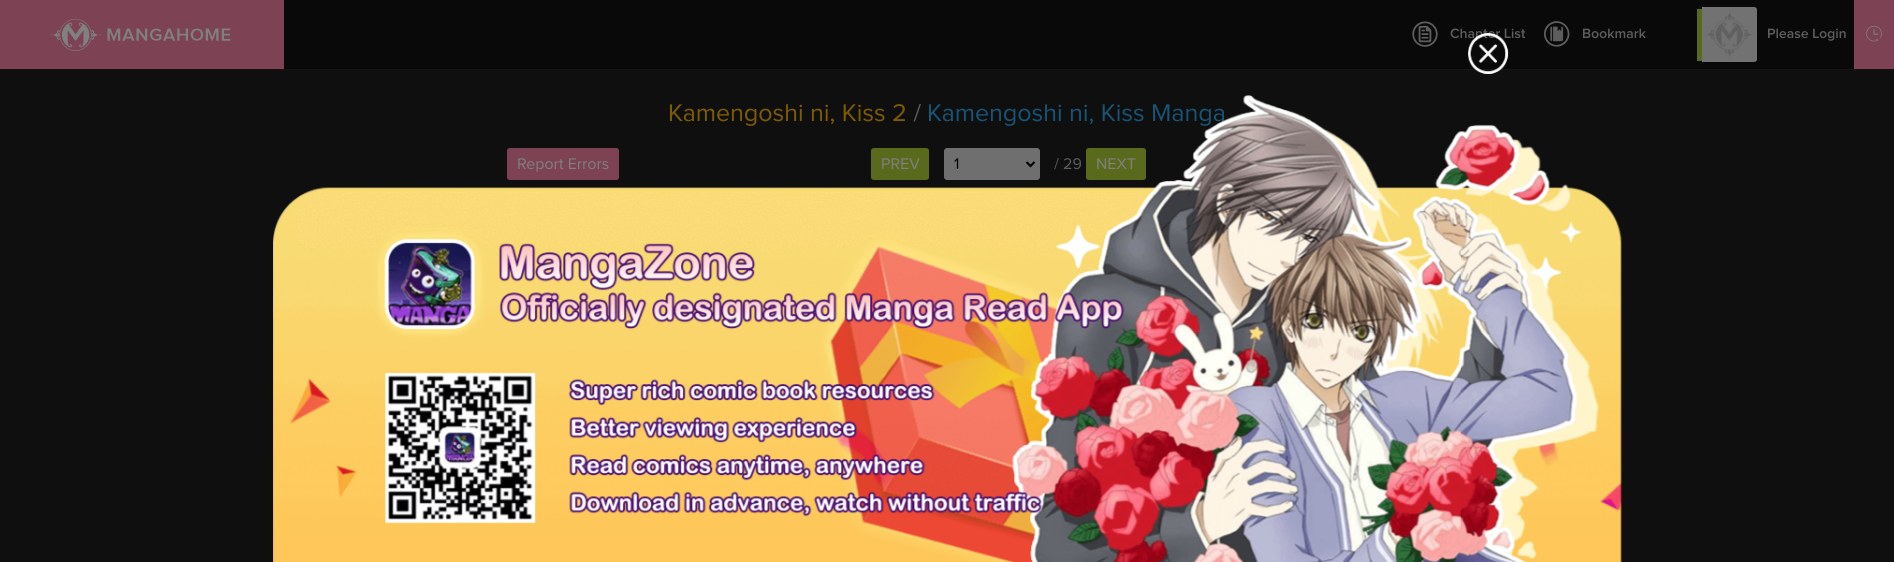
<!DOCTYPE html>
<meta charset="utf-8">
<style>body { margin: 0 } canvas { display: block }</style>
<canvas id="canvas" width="1894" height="562"></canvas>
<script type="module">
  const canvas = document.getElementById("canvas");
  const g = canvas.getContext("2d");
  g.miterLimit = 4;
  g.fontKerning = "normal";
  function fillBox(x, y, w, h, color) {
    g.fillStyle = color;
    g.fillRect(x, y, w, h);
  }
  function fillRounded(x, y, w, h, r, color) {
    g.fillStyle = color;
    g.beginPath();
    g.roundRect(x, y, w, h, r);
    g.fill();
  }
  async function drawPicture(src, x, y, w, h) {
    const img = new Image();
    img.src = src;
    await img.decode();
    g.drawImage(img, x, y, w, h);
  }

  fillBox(0, 0, 1894, 562, "#0F0F0F");
  fillBox(284, 0, 1570, 69, "#090909");
  fillBox(0, 69, 1894, 1, "#141414");
  fillBox(0, 0, 284, 69, "#7D4253");
  await drawPicture("pic1.png", 50, 19, 181, 32);
  await drawPicture("pic2.png", 1412, 21, 26, 26);
  await drawPicture("pic3.png", 1450, 28, 76, 13);
  await drawPicture("pic4.png", 1543, 21, 27, 26);
  await drawPicture("pic5.png", 1583, 28, 63, 11);
  fillBox(1697, 9, 5, 52, "#5A6A1C");
  await drawPicture("pic6.png", 1702, 7, 55, 55);
  await drawPicture("pic7.png", 1768, 28, 78, 13);
  fillBox(1854, 0, 40, 69, "#7D4253");
  await drawPicture("pic8.png", 1866, 25, 16, 17);
  await drawPicture("pic9.png", 669, 104, 236, 22);
  g.fillStyle = "#5D5D5D";
  g.beginPath();
  g.moveTo(915, 121.5);
  g.lineTo(921, 104);
  g.lineTo(919.5, 104);
  g.lineTo(913.5, 121.5);
  g.closePath();
  g.fill();
  await drawPicture("pic10.png", 928, 104, 296, 22);
  fillRounded(507, 148, 112, 32, 3, "#7D4253");
  await drawPicture("pic11.png", 518, 158, 91, 14);
  fillRounded(871, 148, 58, 32, 3, "#5A6A1C");
  await drawPicture("pic12.png", 882, 158, 38, 11);
  g.fillStyle = "#6F6F6F";
  g.beginPath();
  g.roundRect(944.5, 148.5, 95, 31, 2.5);
  g.fill();
  g.strokeStyle = "#6F6F6F";
  g.stroke();
  g.beginPath();
  g.moveTo(1026.5, 162);
  g.lineTo(1030.5, 166);
  g.lineTo(1034.5, 162);
  g.strokeStyle = "#000000";
  g.lineWidth = 2;
  g.stroke();
  await drawPicture("pic13.png", 954, 158, 5, 11);
  await drawPicture("pic14.png", 1054, 158, 28, 12);
  fillRounded(1086, 148, 60, 32, 3, "#5A6A1C");
  await drawPicture("pic15.png", 1097, 158, 39, 11);
  await drawPicture("pic16.png", 1468, 33, 41, 41);
  await drawPicture("pic17.png", 273, 95, 1349, 467);
</script>
